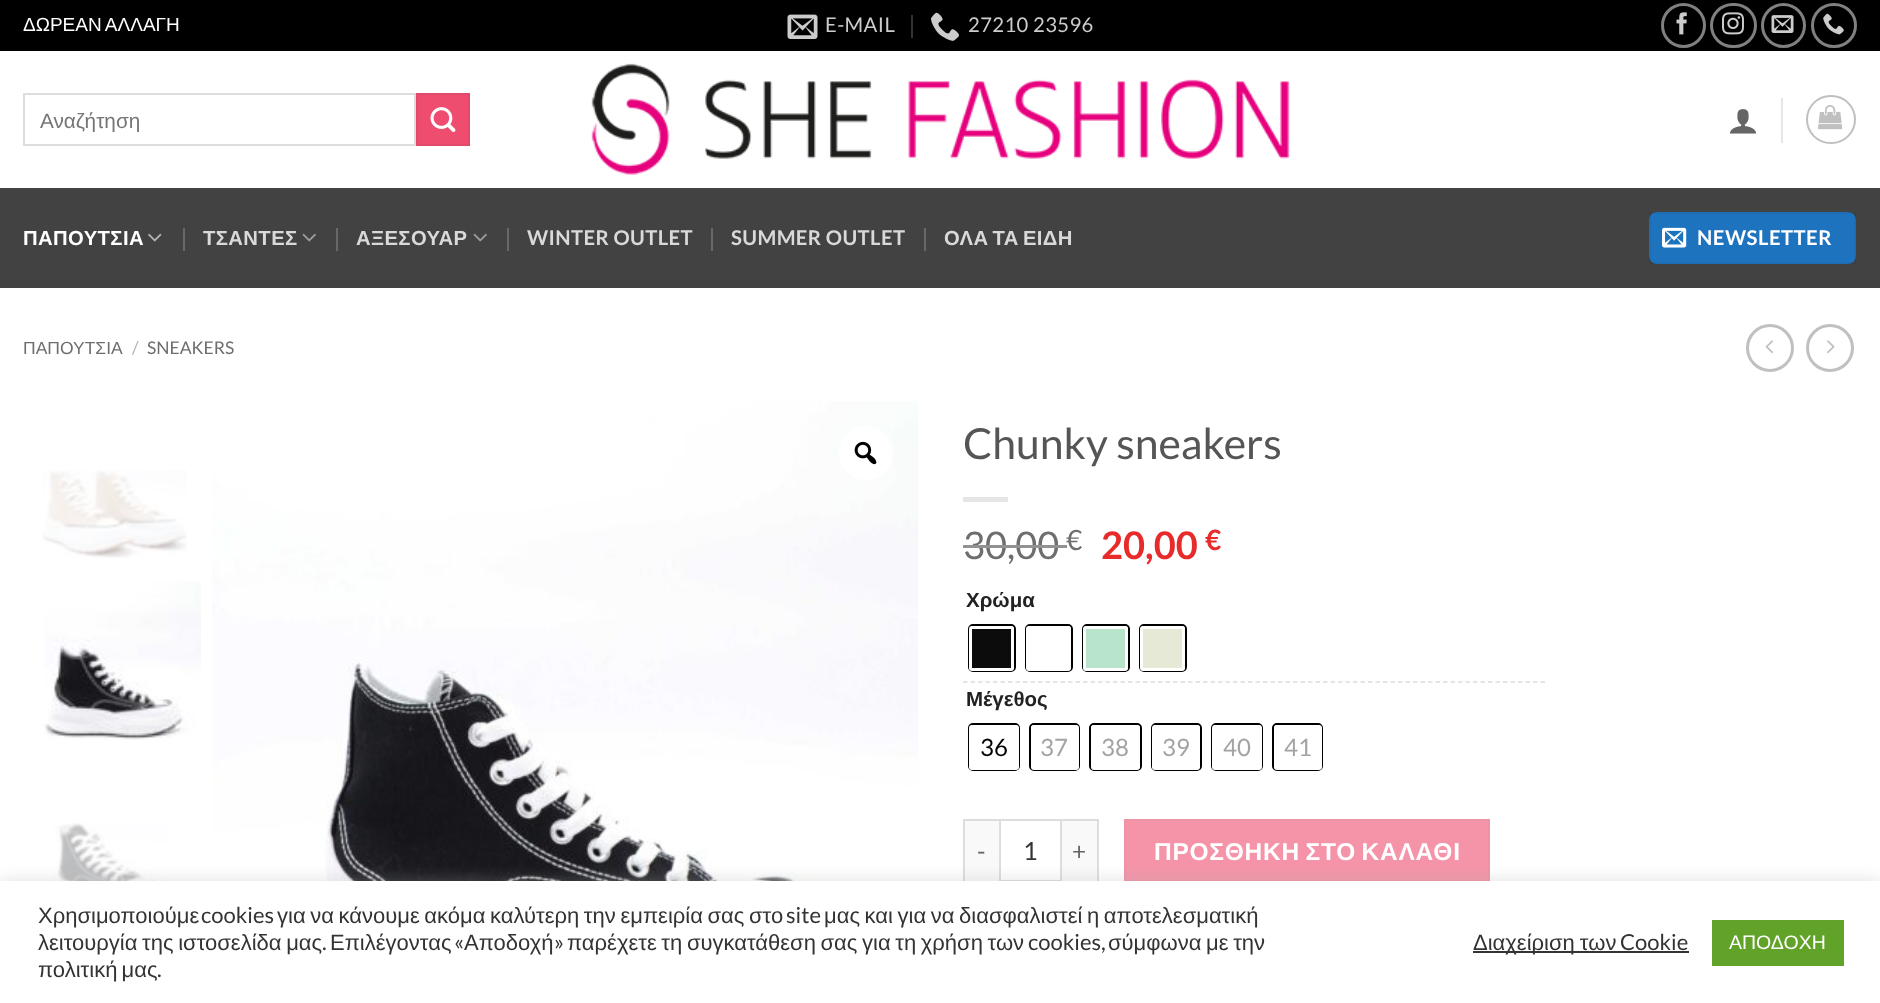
<!DOCTYPE html>
<meta charset="utf-8">
<style>body { margin: 0 } canvas { display: block }</style>
<canvas id="canvas" width="1880" height="1003"></canvas>
<script type="module">
  const canvas = document.getElementById("canvas");
  const g = canvas.getContext("2d");
  g.miterLimit = 4;
  g.fontKerning = "normal";
  function drawText(s, x, y, [font, color]) {
    g.font = font;
    g.fillStyle = color;
    g.fillText(s, x, y);
  }
  function fillBox(x, y, w, h, color) {
    g.fillStyle = color;
    g.fillRect(x, y, w, h);
  }
  function fillRounded(x, y, w, h, r, color) {
    g.fillStyle = color;
    g.beginPath();
    g.roundRect(x, y, w, h, r);
    g.fill();
  }
  async function drawPicture(src, x, y, w, h) {
    const img = new Image();
    img.src = src;
    await img.decode();
    g.drawImage(img, x, y, w, h);
  }

  const s1 = ["19px Liberation Sans", "#FFFFFF"];
  const s2 = ["20.25px Lato", "#CCCCCC"];
  const s3 = ["20.75px Liberation Sans", "#757575"];
  const s4 = ["bold 20.25px Liberation Sans", "#FFFFFF"];
  const s5 = ["bold 20.25px Liberation Sans", "#D9D9D9"];
  const s6 = ["bold 20.25px Lato", "#D9D9D9"];
  const s7 = ["bold 20.25px Lato", "#FFFFFF"];
  const s8 = ["17.5px Liberation Sans", "#6E6E6E"];
  const s9 = ["17.5px Lato", "#B2B2B2"];
  const s10 = ["17.5px Lato", "#6E6E6E"];
  const s11 = ["42.75px Lato", "#555555"];
  const s12 = ["38px Lato", "#6E6E6E"];
  const s13 = ["28px Lato", "#6E6E6E"];
  const s14 = ["bold 38px Lato", "#E72B2B"];
  const s15 = ["bold 28px Lato", "#E72B2B"];
  const s16 = ["bold 20.5px Liberation Sans", "#222222"];
  const s17 = ["24px Lato", "#000000"];
  const s18 = ["24px Lato", "#A3A3A3"];
  const s19 = ["24.5px Lato", "#666666"];
  const s20 = ["25px Lato", "#333333"];
  const s21 = ["bold 24.5px Liberation Sans", "#FFFFFF"];
  const s22 = ["22px Liberation Sans", "#333333"];
  const s23 = ["22px Lato", "#333333"];
  const s24 = ["19.5px Liberation Sans", "#FFFFFF"];

  fillBox(0, 0, 1880, 1003, "#FFFFFF");
  fillBox(0, 0, 1880, 51, "#000000");
  g.wordSpacing = "-1px";
  drawText("ΔΩΡΕΑΝ ΑΛΛΑΓΗ", 23, 31, s1);
  await drawPicture("pic1.png", 787, 14, 31, 25);
  g.letterSpacing = "0.4px";
  g.wordSpacing = "0px";
  drawText("E-MAIL", 825, 32, s2);
  fillBox(911, 15, 2, 23, "#333333");
  await drawPicture("pic2.png", 931, 12, 28, 29);
  drawText("27210 23596", 968, 32, s2);
  g.beginPath();
  g.arc(1683.5, 25.5, 21, 0, Math.PI * 2);
  g.strokeStyle = "#808080";
  g.lineWidth = 3;
  g.stroke();
  await drawPicture("pic3.png", 1676, 12, 11, 23);
  g.beginPath();
  g.roundRect(1711.5, 4.5, 44, 42, 21);
  g.stroke();
  await drawPicture("pic4.png", 1722, 12, 22, 23);
  g.beginPath();
  g.arc(1783.5, 25.5, 21, 0, Math.PI * 2);
  g.stroke();
  await drawPicture("pic5.png", 1771, 15, 23, 18);
  g.beginPath();
  g.roundRect(1812.5, 4.5, 43, 42, 21);
  g.stroke();
  await drawPicture("pic6.png", 1823, 13, 21, 22);
  g.strokeStyle = "#DDDDDD";
  g.lineWidth = 2;
  g.strokeRect(24, 94, 391, 51);
  g.save();
  g.beginPath();
  g.rect(39, 107, 354, 25);
  g.clip();
  g.letterSpacing = "0px";
  drawText("Αναζήτηση", 40, 128, s3);
  g.restore();
  g.fillStyle = "#EE4D70";
  g.beginPath();
  g.rect(417, 94, 52, 51);
  g.fill();
  g.strokeStyle = "#E2496A";
  g.stroke();
  await drawPicture("pic7.png", 430, 107, 26, 25);
  await drawPicture("pic8.png", 591, 63, 699, 112);
  await drawPicture("pic9.png", 1729, 109, 28, 25);
  fillBox(1781, 98, 2, 45, "#E6E6E6");
  g.beginPath();
  g.roundRect(1807, 96, 48, 47, 23.5);
  g.strokeStyle = "#C0C0C0";
  g.stroke();
  await drawPicture("pic10.png", 1818, 105, 25, 25);
  fillBox(0, 188, 1880, 100, "#424242");
  drawText("ΠΑΠΟΥΤΣΙΑ", 23, 245, s4);
  await drawPicture("pic11.png", 148, 233, 14, 9);
  fillBox(183, 228, 2, 23, "#686868");
  drawText("ΤΣΑΝΤΕΣ", 203, 245, s5);
  await drawPicture("pic12.png", 302, 233, 14, 9);
  fillBox(336, 228, 2, 23, "#686868");
  drawText("ΑΞΕΣΟΥΑΡ", 356, 245, s5);
  await drawPicture("pic12.png", 473, 233, 14, 9);
  fillBox(507, 228, 2, 23, "#686868");
  drawText("WINTER OUTLET", 527, 245, s6);
  fillBox(711, 228, 2, 23, "#686868");
  drawText("SUMMER OUTLET", 731, 245, s6);
  fillBox(924, 228, 2, 23, "#686868");
  g.wordSpacing = "-2px";
  drawText("ΟΛΑ ΤΑ ΕΙΔΗ", 944, 245, s5);
  fillRounded(1649, 212, 207, 52, 8, "#1E73BE");
  g.strokeStyle = "rgba(0, 0, 0, 0.05)";
  g.strokeRect(1650, 213, 205, 50);
  await drawPicture("pic13.png", 1662, 227, 25, 21);
  g.letterSpacing = "0.5px";
  g.wordSpacing = "0px";
  drawText("NEWSLETTER", 1697, 245, s7);
  g.letterSpacing = "0px";
  drawText("ΠΑΠΟΥΤΣΙΑ", 23, 354, s8);
  drawText("/", 132, 354, s9);
  drawText("SNEAKERS", 147, 354, s10);
  g.beginPath();
  g.arc(1770, 348, 22.5, 0, Math.PI * 2);
  g.strokeStyle = "#C0C0C0";
  g.lineWidth = 3;
  g.stroke();
  await drawPicture("pic14.png", 1765, 340, 8, 14);
  g.beginPath();
  g.arc(1830, 348, 22.5, 0, Math.PI * 2);
  g.stroke();
  await drawPicture("pic15.png", 1827, 340, 8, 14);
  await drawPicture("pic16.png", 42, 470, 145, 88);
  await drawPicture("pic17.png", 44, 581, 157, 159);
  await drawPicture("pic18.png", 53, 823, 116, 58);
  await drawPicture("pic19.png", 212, 401, 706, 480);
  g.fillStyle = "#FFFFFF";
  g.beginPath();
  g.arc(866, 453, 27, 0, Math.PI * 2);
  g.fill();
  await drawPicture("pic20.png", 854, 441, 23, 24);
  drawText("Chunky sneakers", 963, 459, s11);
  fillBox(963, 497, 45, 5, "#E6E6E6");
  drawText("30,00", 963, 559, s12);
  fillBox(963, 545, 104, 3, "#929292");
  drawText("€", 1066, 550, s13);
  drawText("20,00", 1101, 559, s14);
  drawText("€", 1205, 550, s15);
  drawText("Χρώμα", 966, 607, s16);
  g.beginPath();
  g.roundRect(969, 625, 46, 46, 4);
  g.strokeStyle = "#000000";
  g.lineWidth = 2;
  g.stroke();
  fillRounded(969, 626, 45, 45, 3, "#FFFFFF");
  fillBox(972, 629, 39, 39, "#0C0C0C");
  g.beginPath();
  g.roundRect(1026, 625, 46, 46, 4);
  g.stroke();
  fillRounded(1026, 626, 45, 45, 3, "#FFFFFF");
  g.beginPath();
  g.roundRect(1083, 625, 46, 46, 4);
  g.stroke();
  fillRounded(1083, 626, 45, 45, 3, "#FFFFFF");
  fillBox(1086, 629, 39, 39, "#B9E4CC");
  g.beginPath();
  g.roundRect(1140, 625, 46, 46, 4);
  g.stroke();
  fillRounded(1140, 626, 45, 45, 3, "#FFFFFF");
  fillBox(1143, 629, 39, 39, "#E7E9D7");
  g.beginPath();
  g.moveTo(963, 682);
  g.lineTo(1545, 682);
  g.strokeStyle = "#DDDDDD";
  g.lineWidth = 1.5;
  g.setLineDash([4.5, 3]);
  g.stroke();
  drawText("Μέγεθος", 966, 706, s16);
  g.beginPath();
  g.roundRect(969, 724, 50, 46, 4);
  g.strokeStyle = "#000000";
  g.lineWidth = 2;
  g.setLineDash([]);
  g.stroke();
  fillRounded(969, 725, 50, 45, 3, "#FFFFFF");
  drawText("36", 980, 756, s17);
  g.beginPath();
  g.roundRect(1030, 724, 49, 46, 4);
  g.stroke();
  fillRounded(1031, 725, 48, 45, 3, "#FFFFFF");
  drawText("37", 1040, 756, s18);
  g.beginPath();
  g.roundRect(1090, 724, 51, 46, 4);
  g.stroke();
  fillRounded(1091, 725, 49, 45, 3, "#FFFFFF");
  drawText("38", 1101, 756, s18);
  g.beginPath();
  g.roundRect(1152, 724, 49, 46, 4);
  g.stroke();
  fillRounded(1152, 725, 48, 45, 3, "#FFFFFF");
  drawText("39", 1162, 756, s18);
  g.beginPath();
  g.roundRect(1212, 724, 50, 46, 4);
  g.stroke();
  fillRounded(1212, 725, 50, 45, 3, "#FFFFFF");
  drawText("40", 1223, 756, s18);
  g.beginPath();
  g.roundRect(1273, 724, 49, 46, 4);
  g.stroke();
  fillRounded(1274, 725, 48, 45, 3, "#FFFFFF");
  drawText("41", 1284, 756, s18);
  fillBox(965, 821, 34, 60, "#F9F9F9");
  fillBox(963, 819, 36, 2, "#DDDDDD");
  fillBox(963, 819, 2, 63, "#DDDDDD");
  g.letterSpacing = "0.75px";
  drawText("-", 977, 860, s19);
  g.strokeStyle = "#DDDDDD";
  g.strokeRect(1000, 820, 61, 61);
  g.letterSpacing = "0px";
  drawText("1", 1023, 860, s20);
  fillBox(1062, 821, 35, 60, "#F9F9F9");
  fillBox(1062, 819, 36, 2, "#DDDDDD");
  fillBox(1097, 819, 2, 63, "#DDDDDD");
  g.letterSpacing = "0.75px";
  drawText("+", 1072, 860, s19);
  g.fillStyle = "#F594A9";
  g.beginPath();
  g.rect(1125, 820, 364, 61);
  g.fill();
  g.strokeStyle = "#EE92A6";
  g.stroke();
  g.wordSpacing = "-2px";
  drawText("ΠΡΟΣΘΗΚΗ ΣΤΟ ΚΑΛΑΘΙ", 1154, 860, s21);
  g.fillStyle = "rgba(172, 171, 171, 0.3)";
  g.filter = "blur(7.5px)";
  g.beginPath();
  g.rect(0, 879, 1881, 123);
  g.fill();
  g.filter = "none";
  fillBox(0, 881, 1880, 122, "#FFFFFF");
  g.letterSpacing = "0px";
  g.wordSpacing = "0px";
  drawText("Χρησιμοποιούμε", 38, 923, s22);
  drawText("cookies", 201, 923, s23);
  g.wordSpacing = "-1.5px";
  drawText("για να κάνουμε ακόμα καλύτερη την εμπειρία σας στο", 277, 923, s22);
  g.wordSpacing = "0px";
  drawText("site", 786, 923, s23);
  g.wordSpacing = "-1.5px";
  drawText("μας και για να διασφαλιστεί η αποτελεσματική", 824, 923, s22);
  drawText("λειτουργία της ιστοσελίδα μας", 38, 950, s22);
  g.wordSpacing = "0px";
  drawText(".", 322, 950, s23);
  drawText("Επιλέγοντας", 330, 950, s22);
  drawText("«", 454, 950, s23);
  drawText("Αποδοχή", 464, 950, s22);
  drawText("»", 554, 950, s23);
  g.wordSpacing = "-1.5px";
  drawText("παρέχετε τη συγκατάθεση σας για τη χρήση των", 567, 950, s22);
  g.wordSpacing = "0px";
  drawText("cookies,", 1028, 950, s23);
  g.wordSpacing = "-1.5px";
  drawText("σύμφωνα με την", 1108, 950, s22);
  g.wordSpacing = "-2px";
  drawText("πολιτική μας", 38, 977, s22);
  g.wordSpacing = "0px";
  drawText(".", 157, 977, s23);
  fillBox(1473, 951, 216, 2, "#333333");
  g.wordSpacing = "-1px";
  drawText("Διαχείριση των", 1473, 950, s22);
  g.wordSpacing = "0px";
  drawText("Cookie", 1620, 950, s23);
  fillBox(1712, 920, 132, 46, "#61A229");
  drawText("ΑΠΟΔΟΧΗ", 1729, 949, s24);
</script>
